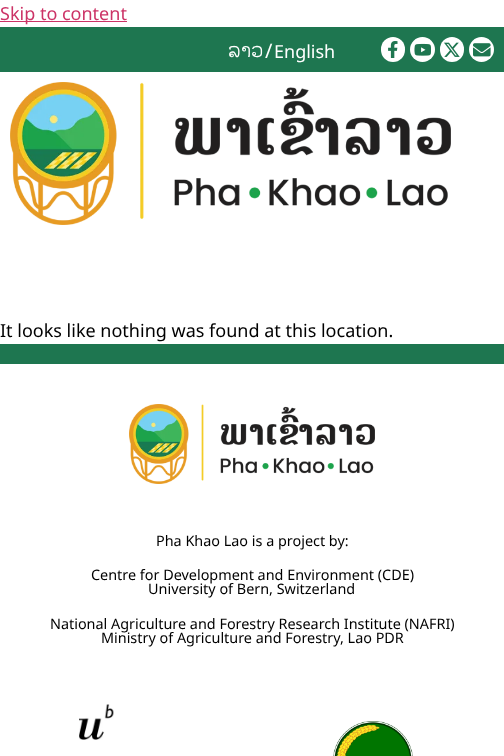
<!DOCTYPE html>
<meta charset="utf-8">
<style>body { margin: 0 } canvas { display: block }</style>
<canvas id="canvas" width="504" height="756"></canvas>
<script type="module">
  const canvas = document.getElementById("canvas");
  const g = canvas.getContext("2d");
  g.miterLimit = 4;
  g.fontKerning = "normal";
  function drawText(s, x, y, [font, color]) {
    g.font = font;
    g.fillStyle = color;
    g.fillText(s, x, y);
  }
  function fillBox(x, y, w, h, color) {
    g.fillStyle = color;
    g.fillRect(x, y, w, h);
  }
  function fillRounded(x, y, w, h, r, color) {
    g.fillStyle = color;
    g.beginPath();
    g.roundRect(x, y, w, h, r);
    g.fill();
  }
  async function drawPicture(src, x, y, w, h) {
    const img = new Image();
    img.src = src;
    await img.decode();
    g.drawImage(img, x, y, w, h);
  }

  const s1 = ["18px Noto Sans", "#CC3366"];
  const s2 = ["20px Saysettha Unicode", "#FFFFFF"];
  const s3 = ["20px Noto Sans", "#FFFFFF"];
  const s4 = ["18px Noto Sans", "#FFFFFF"];
  const s5 = ["18px Noto Sans", "#000000"];
  const s6 = ["14.4px Noto Sans", "#000000"];

  fillBox(0, 0, 504, 756, "#FFFFFF");
  fillBox(0, 21, 127, 1, "#CC3366");
  drawText("Skip to content", 0, 20, s1);
  fillBox(0, 27, 504, 45, "#1E7650");
  drawText("ລາວ", 228, 57, s2);
  drawText("/", 265, 58, s3);
  drawText("English", 274, 58, s4);
  fillRounded(381, 37, 24, 25, 12, "#FFFFFF");
  await drawPicture("pic1.png", 388, 41, 10, 17);
  g.beginPath();
  g.arc(422.5, 49.5, 12.5, 0, Math.PI * 2);
  g.fill();
  await drawPicture("pic2.png", 414, 43, 17, 13);
  fillRounded(440, 37, 24, 25, 12, "#FFFFFF");
  await drawPicture("pic3.png", 444, 42, 16, 15);
  g.beginPath();
  g.arc(481.5, 49.5, 12.5, 0, Math.PI * 2);
  g.fill();
  await drawPicture("pic4.png", 473, 43, 18, 14);
  await drawPicture("pic5.png", 10, 82, 441, 143);
  drawText("It looks like nothing was found at this location.", 0, 337, s5);
  fillBox(0, 344, 504, 20, "#1E7650");
  await drawPicture("pic6.png", 129, 404, 246, 80);
  drawText("Pha Khao Lao is a project by:", 156, 546, s6);
  drawText("Centre for Development and Environment (CDE)", 91, 580, s6);
  drawText("University of Bern, Switzerland", 148, 594, s6);
  drawText("National Agriculture and Forestry Research Institute (NAFRI)", 50, 629, s6);
  drawText("Ministry of Agriculture and Forestry, Lao PDR", 101, 643, s6);
  await drawPicture("pic7.png", 79, 704, 35, 36);
  await drawPicture("pic8.png", 333, 721, 80, 35);
</script>
